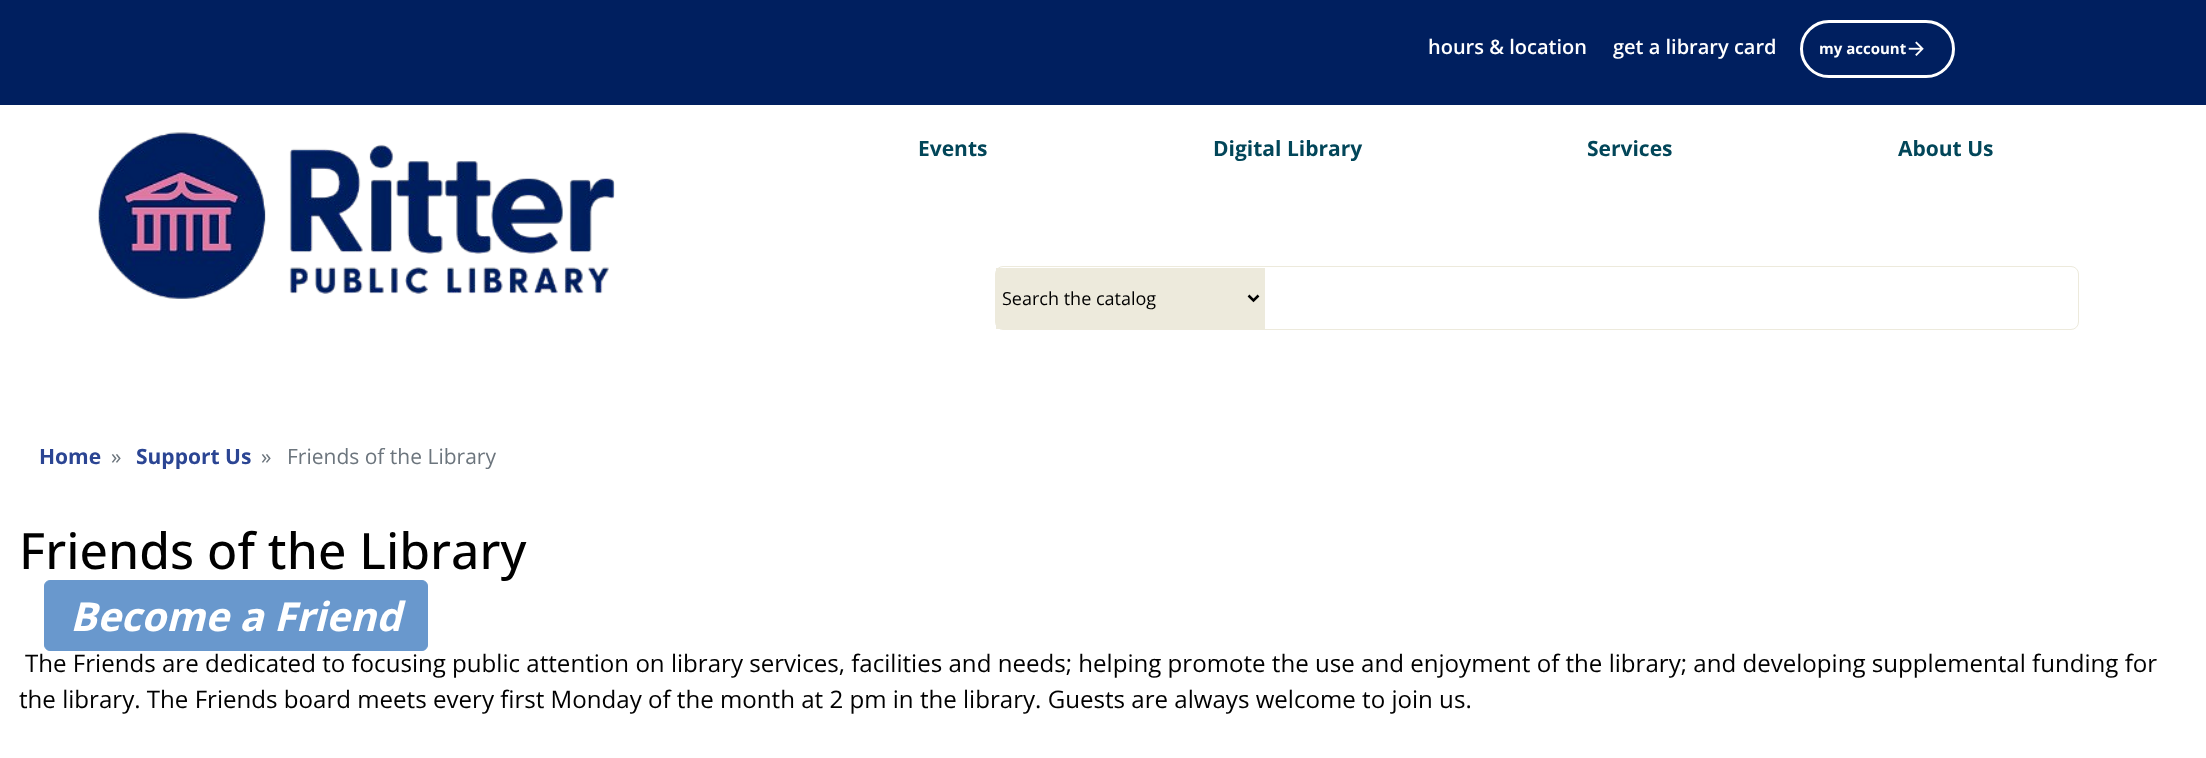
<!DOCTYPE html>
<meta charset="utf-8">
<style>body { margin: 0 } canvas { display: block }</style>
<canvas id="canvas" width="2206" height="758"></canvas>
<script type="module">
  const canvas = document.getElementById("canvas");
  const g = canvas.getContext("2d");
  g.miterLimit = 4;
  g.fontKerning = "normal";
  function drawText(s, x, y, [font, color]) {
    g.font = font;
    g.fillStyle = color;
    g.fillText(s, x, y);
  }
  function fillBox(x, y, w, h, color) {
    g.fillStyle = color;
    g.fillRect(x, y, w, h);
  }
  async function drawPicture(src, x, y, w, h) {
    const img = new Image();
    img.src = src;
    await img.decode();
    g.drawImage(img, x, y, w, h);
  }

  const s1 = ["600 20px Open Sans", "#FFFFFF"];
  const s2 = ["bold 15px Open Sans", "#FFFFFF"];
  const s3 = ["bold 21px Open Sans", "#024659"];
  const s4 = ["18px Open Sans", "#000000"];
  const s5 = ["bold 21px Open Sans", "#2B4593"];
  const s6 = ["21px Open Sans", "#6C757D"];
  const s7 = ["500 50px Open Sans", "#000000"];
  const s8 = ["italic bold 40px Open Sans", "#FFFFFF"];
  const s9 = ["24.1px Open Sans", "#000000"];

  fillBox(0, 0, 2206, 758, "#FFFFFF");
  fillBox(0, 0, 2206, 105, "#001F5F");
  drawText("hours & location", 1428, 54, s1);
  drawText("get a library card", 1613, 54, s1);
  g.beginPath();
  g.roundRect(1801.5, 21.5, 152, 55, 27.5);
  g.strokeStyle = "#FFFFFF";
  g.lineWidth = 3;
  g.stroke();
  drawText("my account", 1819, 54, s2);
  await drawPicture("pic1.png", 1908, 41, 16, 15);
  await drawPicture("pic2.png", 98, 132, 517, 167);
  drawText("Events", 918, 156, s3);
  drawText("Digital Library", 1213, 156, s3);
  drawText("Services", 1587, 156, s3);
  drawText("About Us", 1898, 156, s3);
  g.beginPath();
  g.roundRect(995.5, 266.5, 1083, 63, 7.5);
  g.strokeStyle = "#EDEADC";
  g.lineWidth = 1;
  g.stroke();
  fillBox(996, 268, 269, 61, "#EDEADC");
  g.beginPath();
  g.moveTo(1248.5, 295.5);
  g.lineTo(1253.5, 300.5);
  g.lineTo(1258.5, 295.5);
  g.strokeStyle = "#000000";
  g.lineWidth = 2.5;
  g.stroke();
  drawText("Search the catalog", 1002, 305, s4);
  drawText("Home", 39, 464, s5);
  drawText("»", 111, 464, s6);
  drawText("Support Us", 136, 464, s5);
  drawText("»", 261, 464, s6);
  drawText("Friends of the Library", 287, 464, s6);
  drawText("Friends of the Library", 19, 569, s7);
  g.fillStyle = "#6998CD";
  g.beginPath();
  g.roundRect(44.5, 580.5, 383, 70, 5.5);
  g.fill();
  g.strokeStyle = "#6998CD";
  g.lineWidth = 1;
  g.stroke();
  drawText("Become a Friend", 70, 631, s8);
  drawText("The Friends are dedicated to focusing public attention on library services, facilities and needs; helping promote the use and enjoyment of the library; and developing supplemental funding for", 25, 672, s9);
  drawText("the library. The Friends board meets every first Monday of the month at 2 pm in the library. Guests are always welcome to join us.", 19, 708, s9);
</script>
